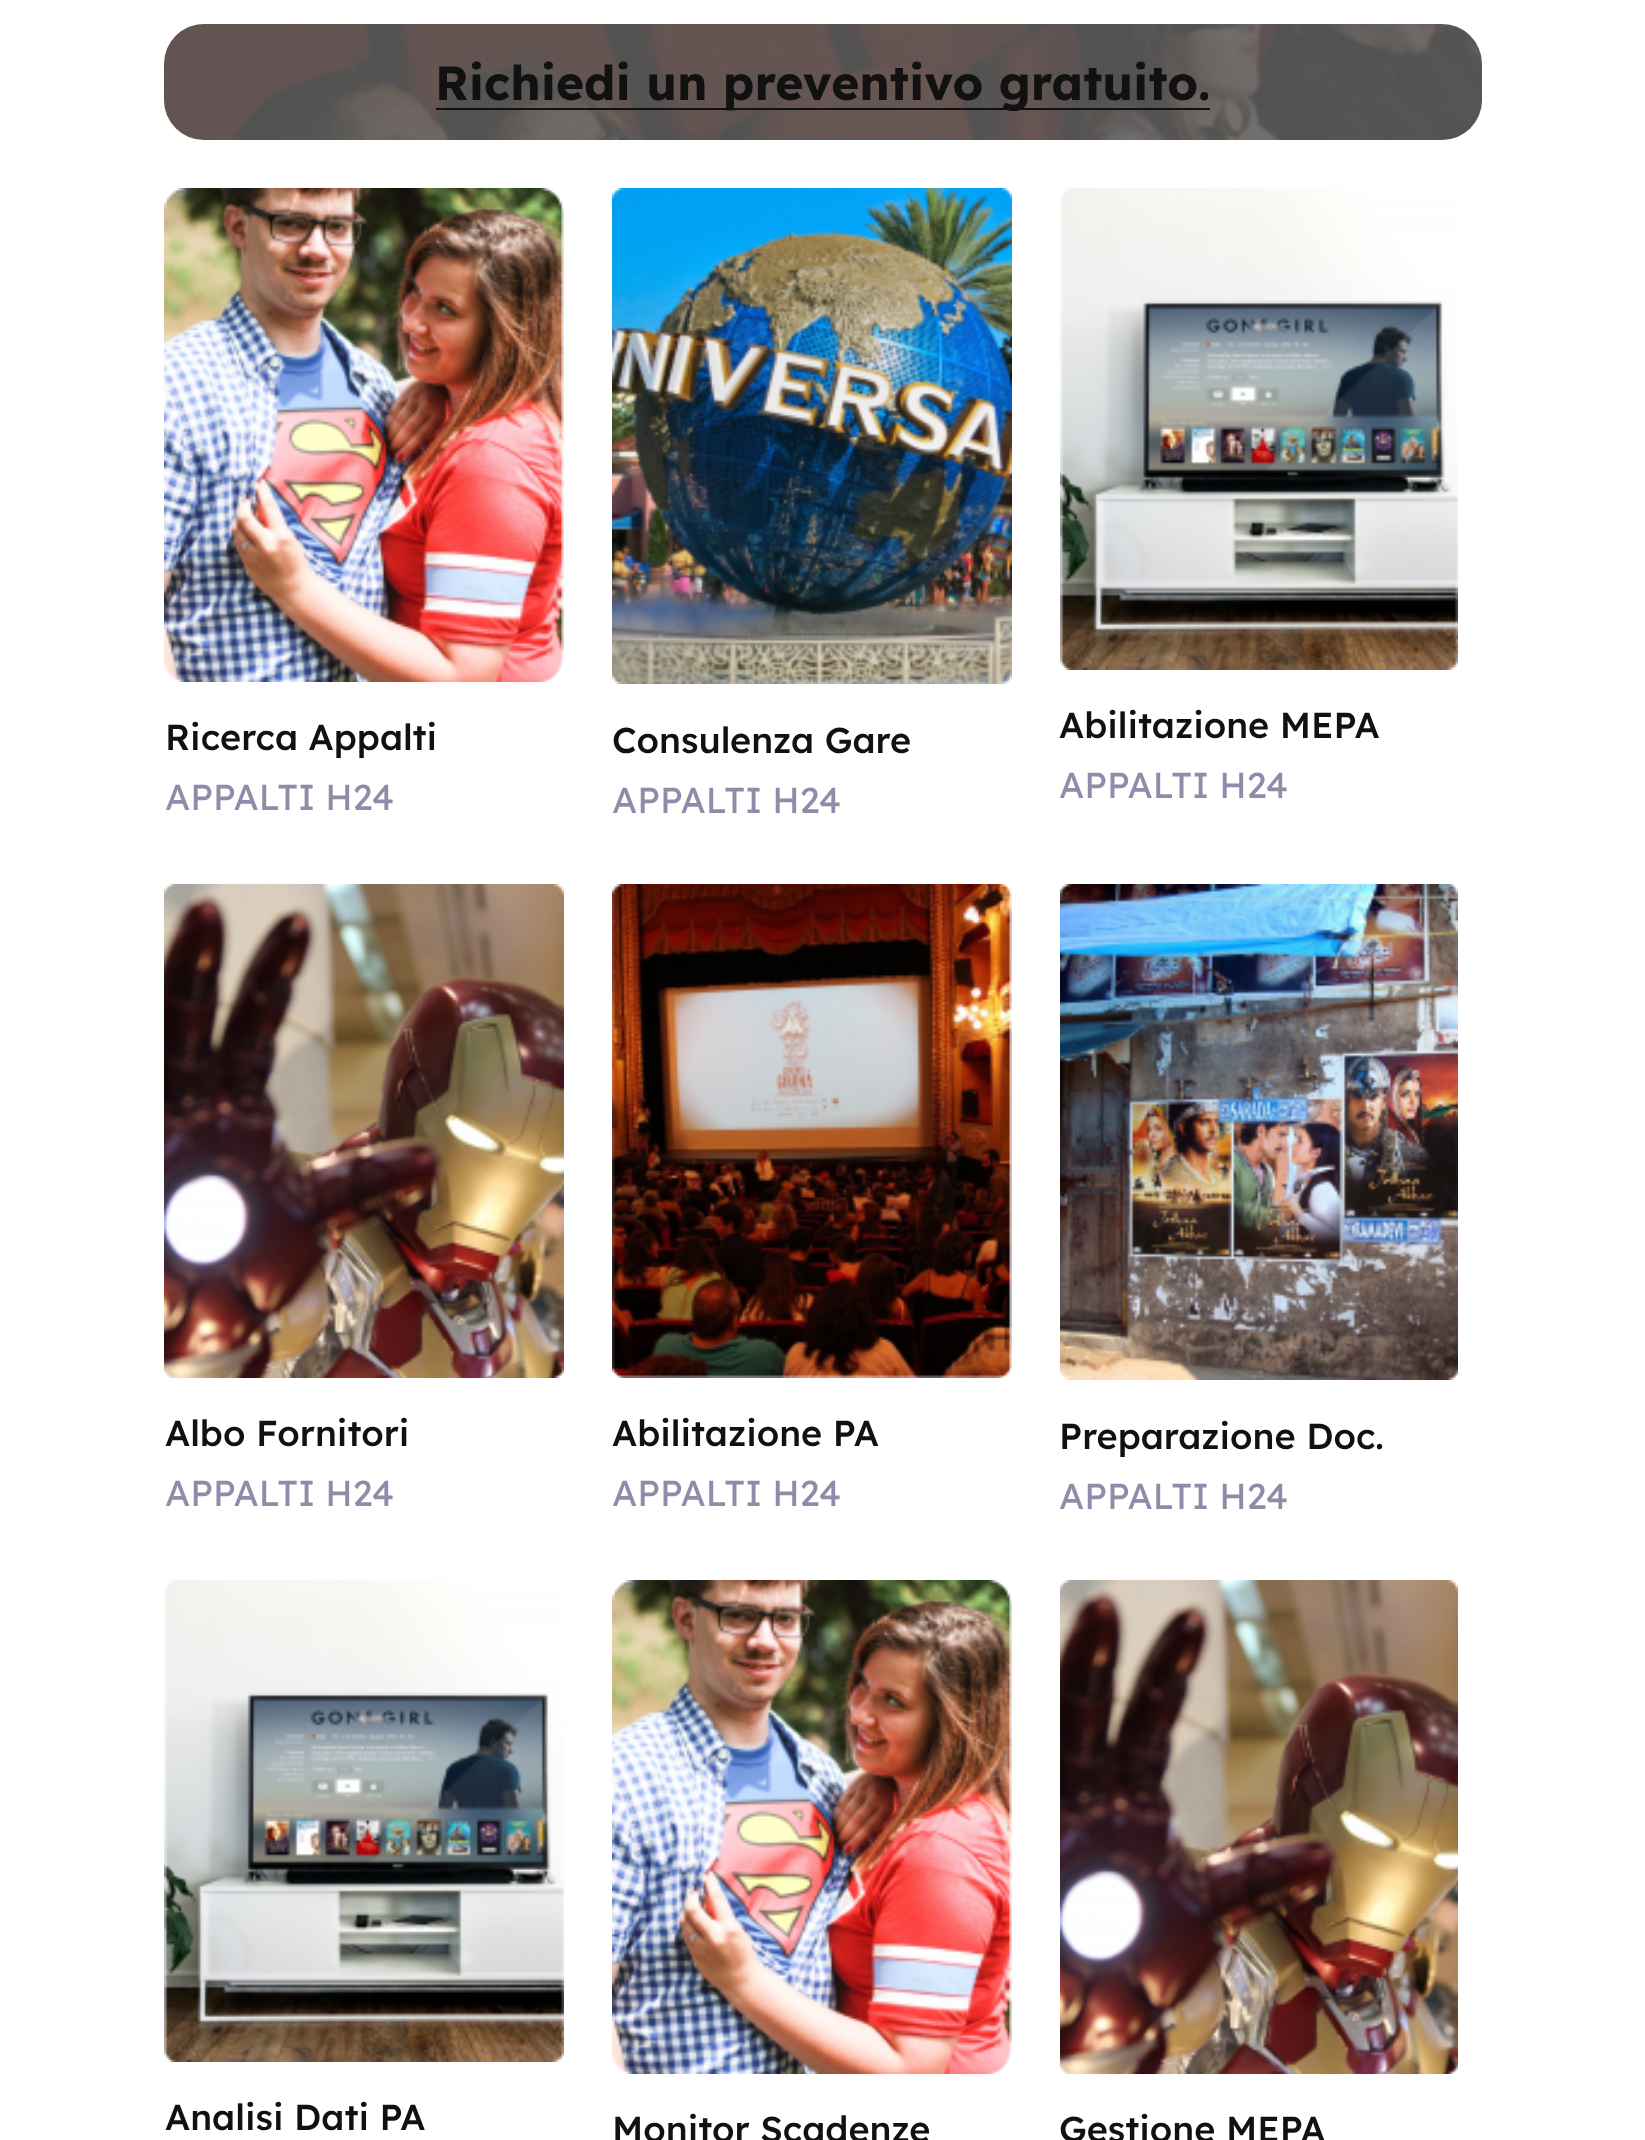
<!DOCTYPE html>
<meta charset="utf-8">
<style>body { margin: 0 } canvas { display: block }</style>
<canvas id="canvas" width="1645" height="2140"></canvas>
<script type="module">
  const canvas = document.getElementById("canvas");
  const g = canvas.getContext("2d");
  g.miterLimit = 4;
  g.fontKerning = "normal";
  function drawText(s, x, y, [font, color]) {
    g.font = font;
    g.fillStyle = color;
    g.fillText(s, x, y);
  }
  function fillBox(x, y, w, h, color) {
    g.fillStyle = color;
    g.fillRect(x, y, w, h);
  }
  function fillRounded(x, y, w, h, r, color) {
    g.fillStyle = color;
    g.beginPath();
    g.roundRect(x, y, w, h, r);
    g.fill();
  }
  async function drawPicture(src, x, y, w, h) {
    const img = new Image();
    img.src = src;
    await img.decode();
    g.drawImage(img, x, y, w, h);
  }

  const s1 = ["bold 48px Lexend Deca", "#111111"];
  const s2 = ["500 36px Lexend Deca", "#111111"];
  const s3 = ["36px Lexend Deca", "#8D8DA9"];

  fillBox(0, 0, 1645, 2140, "#FFFFFF");
  await drawPicture("pic1.png", 164, 24, 1318, 116);
  fillRounded(164, 24, 1318, 116, 40, "rgba(17, 17, 17, 0.6)");
  fillBox(436, 108, 774, 2, "#111111");
  drawText("Richiedi un preventivo gratuito.", 435, 100, s1);
  await drawPicture("pic2.png", 164, 188, 400, 494);
  drawText("Ricerca Appalti", 165, 750, s2);
  drawText("APPALTI H24", 165, 810, s3);
  await drawPicture("pic3.png", 612, 188, 400, 496);
  drawText("Consulenza Gare", 612, 753, s2);
  drawText("APPALTI H24", 612, 813, s3);
  await drawPicture("pic4.png", 1060, 188, 398, 482);
  drawText("Abilitazione MEPA", 1059, 738, s2);
  drawText("APPALTI H24", 1059, 798, s3);
  await drawPicture("pic5.png", 164, 884, 400, 494);
  drawText("Albo Fornitori", 165, 1446, s2);
  drawText("APPALTI H24", 165, 1506, s3);
  await drawPicture("pic6.png", 612, 884, 400, 494);
  drawText("Abilitazione PA", 612, 1446, s2);
  drawText("APPALTI H24", 612, 1506, s3);
  await drawPicture("pic7.png", 1060, 884, 398, 496);
  drawText("Preparazione Doc.", 1059, 1449, s2);
  drawText("APPALTI H24", 1059, 1509, s3);
  await drawPicture("pic8.png", 164, 1580, 400, 482);
  drawText("Analisi Dati PA", 165, 2130, s2);
  await drawPicture("pic9.png", 612, 1580, 400, 494);
  drawText("Monitor Scadenze", 612, 2142, s2);
  await drawPicture("pic10.png", 1060, 1580, 398, 494);
  drawText("Gestione MEPA", 1059, 2142, s2);
</script>
